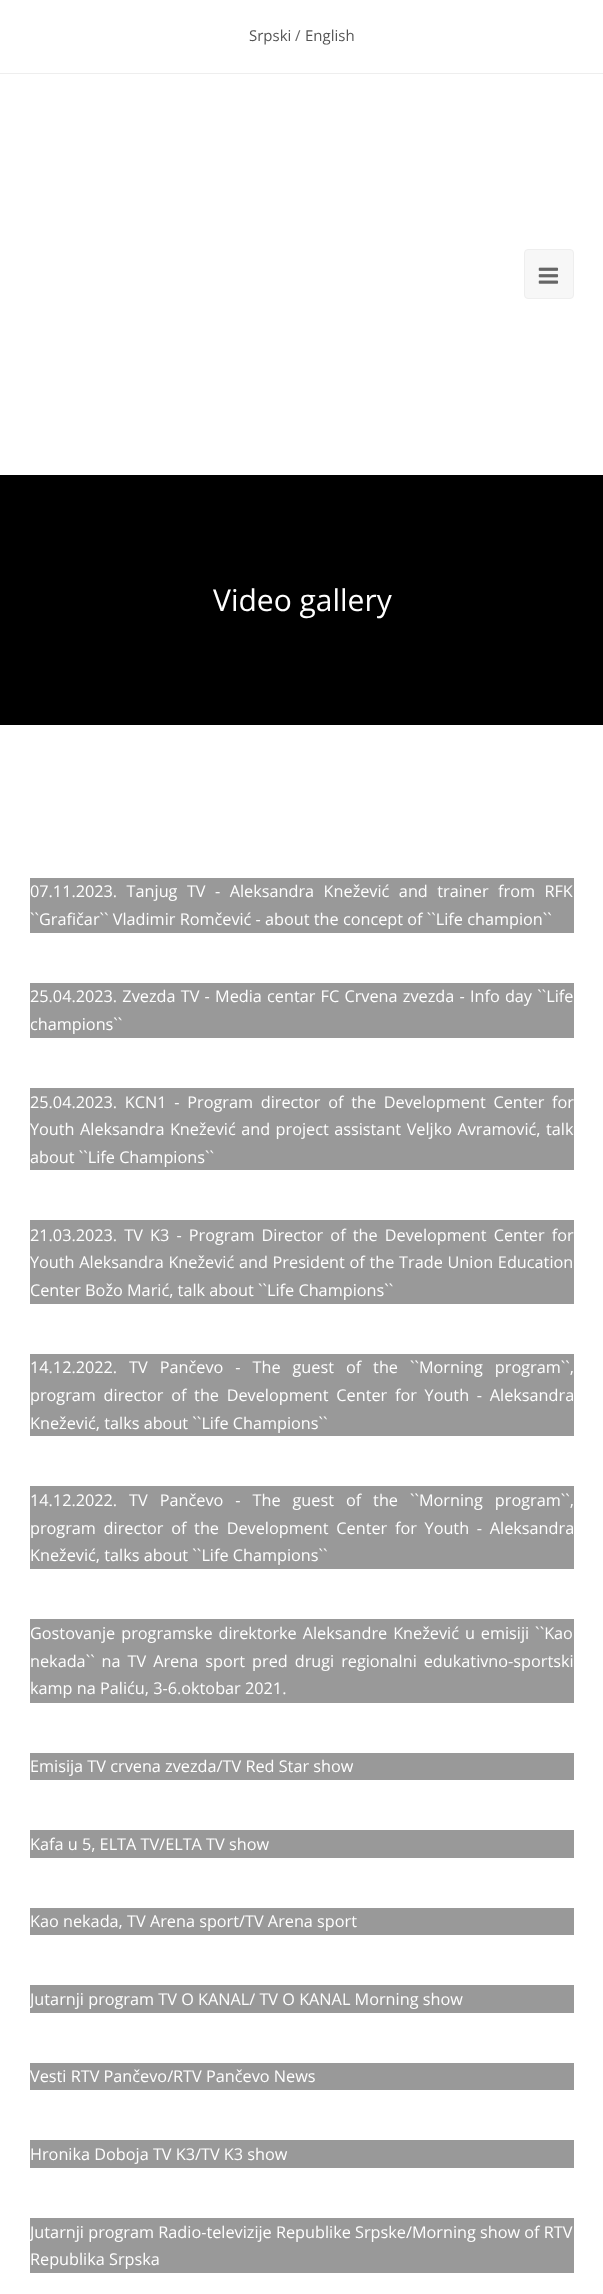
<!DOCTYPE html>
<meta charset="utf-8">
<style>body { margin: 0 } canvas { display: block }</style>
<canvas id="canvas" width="603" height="2294"></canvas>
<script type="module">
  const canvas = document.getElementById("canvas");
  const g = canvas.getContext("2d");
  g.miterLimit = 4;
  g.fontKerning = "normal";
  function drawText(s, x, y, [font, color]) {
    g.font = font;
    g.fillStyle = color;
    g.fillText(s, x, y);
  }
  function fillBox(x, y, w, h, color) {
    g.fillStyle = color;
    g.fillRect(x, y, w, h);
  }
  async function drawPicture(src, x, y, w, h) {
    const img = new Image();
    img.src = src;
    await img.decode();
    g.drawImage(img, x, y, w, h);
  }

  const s1 = ["15px Open Sans", "#555555"];
  const s2 = ["15px Open Sans", "#666666"];
  const s3 = ["30px Open Sans", "#FFFFFF"];
  const s4 = ["16.25px Open Sans", "#FFFFFF"];

  fillBox(0, 0, 603, 2294, "#FFFFFF");
  fillBox(0, 73, 603, 1, "#EEEEEE");
  drawText("Srpski", 249, 41, s1);
  drawText("/", 295, 41, s2);
  drawText("English", 305, 41, s1);
  g.fillStyle = "#F7F7F7";
  g.beginPath();
  g.roundRect(524.5, 249.5, 49, 49, 3.5);
  g.fill();
  g.strokeStyle = "#EEEEEE";
  g.stroke();
  await drawPicture("pic1.png", 538, 267, 21, 17);
  fillBox(0, 475, 603, 250, "#000000");
  drawText("Video gallery", 213, 611, s3);
  fillBox(30, 878, 544, 55, "#999999");
  g.wordSpacing = "5.25px";
  drawText("07.11.2023. Tanjug TV - Aleksandra Knežević and trainer from RFK", 30, 897, s4);
  g.wordSpacing = "0px";
  drawText("``Grafičar`` Vladimir Romčević - about the concept of ``Life champion``", 30, 925, s4);
  fillBox(30, 983, 544, 55, "#999999");
  g.wordSpacing = "1px";
  drawText("25.04.2023. Zvezda TV - Media centar FC Crvena zvezda - Info day ``Life", 30, 1002, s4);
  g.wordSpacing = "0px";
  drawText("champions``", 30, 1030, s4);
  fillBox(30, 1088, 544, 82, "#999999");
  g.wordSpacing = "3.5px";
  drawText("25.04.2023. KCN1 - Program director of the Development Center for", 30, 1108, s4);
  g.wordSpacing = "1.25px";
  drawText("Youth Aleksandra Knežević and project assistant Veljko Avramović, talk", 30, 1135, s4);
  g.wordSpacing = "0px";
  drawText("about ``Life Champions``", 30, 1163, s4);
  fillBox(30, 1220, 544, 84, "#999999");
  g.wordSpacing = "2.9px";
  drawText("21.03.2023. TV K3 - Program Director of the Development Center for", 30, 1241, s4);
  g.wordSpacing = "0.5px";
  drawText("Youth Aleksandra Knežević and President of the Trade Union Education", 30, 1268, s4);
  g.wordSpacing = "0px";
  drawText("Center Božo Marić, talk about ``Life Champions``", 30, 1296, s4);
  fillBox(30, 1354, 544, 82, "#999999");
  g.wordSpacing = "7.75px";
  drawText("14.12.2022. TV Pančevo - The guest of the ``Morning program``,", 30, 1373, s4);
  g.wordSpacing = "3.5px";
  drawText("program director of the Development Center for Youth - Aleksandra", 30, 1401, s4);
  g.wordSpacing = "0px";
  drawText("Knežević, talks about ``Life Champions``", 30, 1429, s4);
  fillBox(30, 1486, 544, 83, "#999999");
  g.wordSpacing = "7.75px";
  drawText("14.12.2022. TV Pančevo - The guest of the ``Morning program``,", 30, 1506, s4);
  g.wordSpacing = "3.5px";
  drawText("program director of the Development Center for Youth - Aleksandra", 30, 1534, s4);
  g.wordSpacing = "0px";
  drawText("Knežević, talks about ``Life Champions``", 30, 1561, s4);
  fillBox(30, 1619, 544, 84, "#999999");
  g.wordSpacing = "1.75px";
  drawText("Gostovanje programske direktorke Aleksandre Knežević u emisiji ``Kao", 30, 1639, s4);
  g.wordSpacing = "2.75px";
  drawText("nekada`` na TV Arena sport pred drugi regionalni edukativno-sportski", 30, 1667, s4);
  g.wordSpacing = "0px";
  drawText("kamp na Paliću, 3-6.oktobar 2021.", 30, 1694, s4);
  fillBox(30, 1753, 544, 27, "#999999");
  drawText("Emisija TV crvena zvezda/TV Red Star show", 30, 1772, s4);
  fillBox(30, 1830, 544, 28, "#999999");
  drawText("Kafa u 5, ELTA TV/ELTA TV show", 30, 1850, s4);
  fillBox(30, 1908, 544, 27, "#999999");
  drawText("Kao nekada, TV Arena sport/TV Arena sport", 30, 1927, s4);
  fillBox(30, 1985, 544, 28, "#999999");
  drawText("Jutarnji program TV O KANAL/ TV O KANAL Morning show", 30, 2005, s4);
  fillBox(30, 2063, 544, 27, "#999999");
  drawText("Vesti RTV Pančevo/RTV Pančevo News", 30, 2082, s4);
  fillBox(30, 2140, 544, 28, "#999999");
  drawText("Hronika Doboja TV K3/TV K3 show", 30, 2160, s4);
  fillBox(30, 2218, 544, 55, "#999999");
  drawText("Jutarnji program Radio-televizije Republike Srpske/Morning show of RTV", 30, 2238, s4);
  drawText("Republika Srpska", 30, 2265, s4);
</script>
